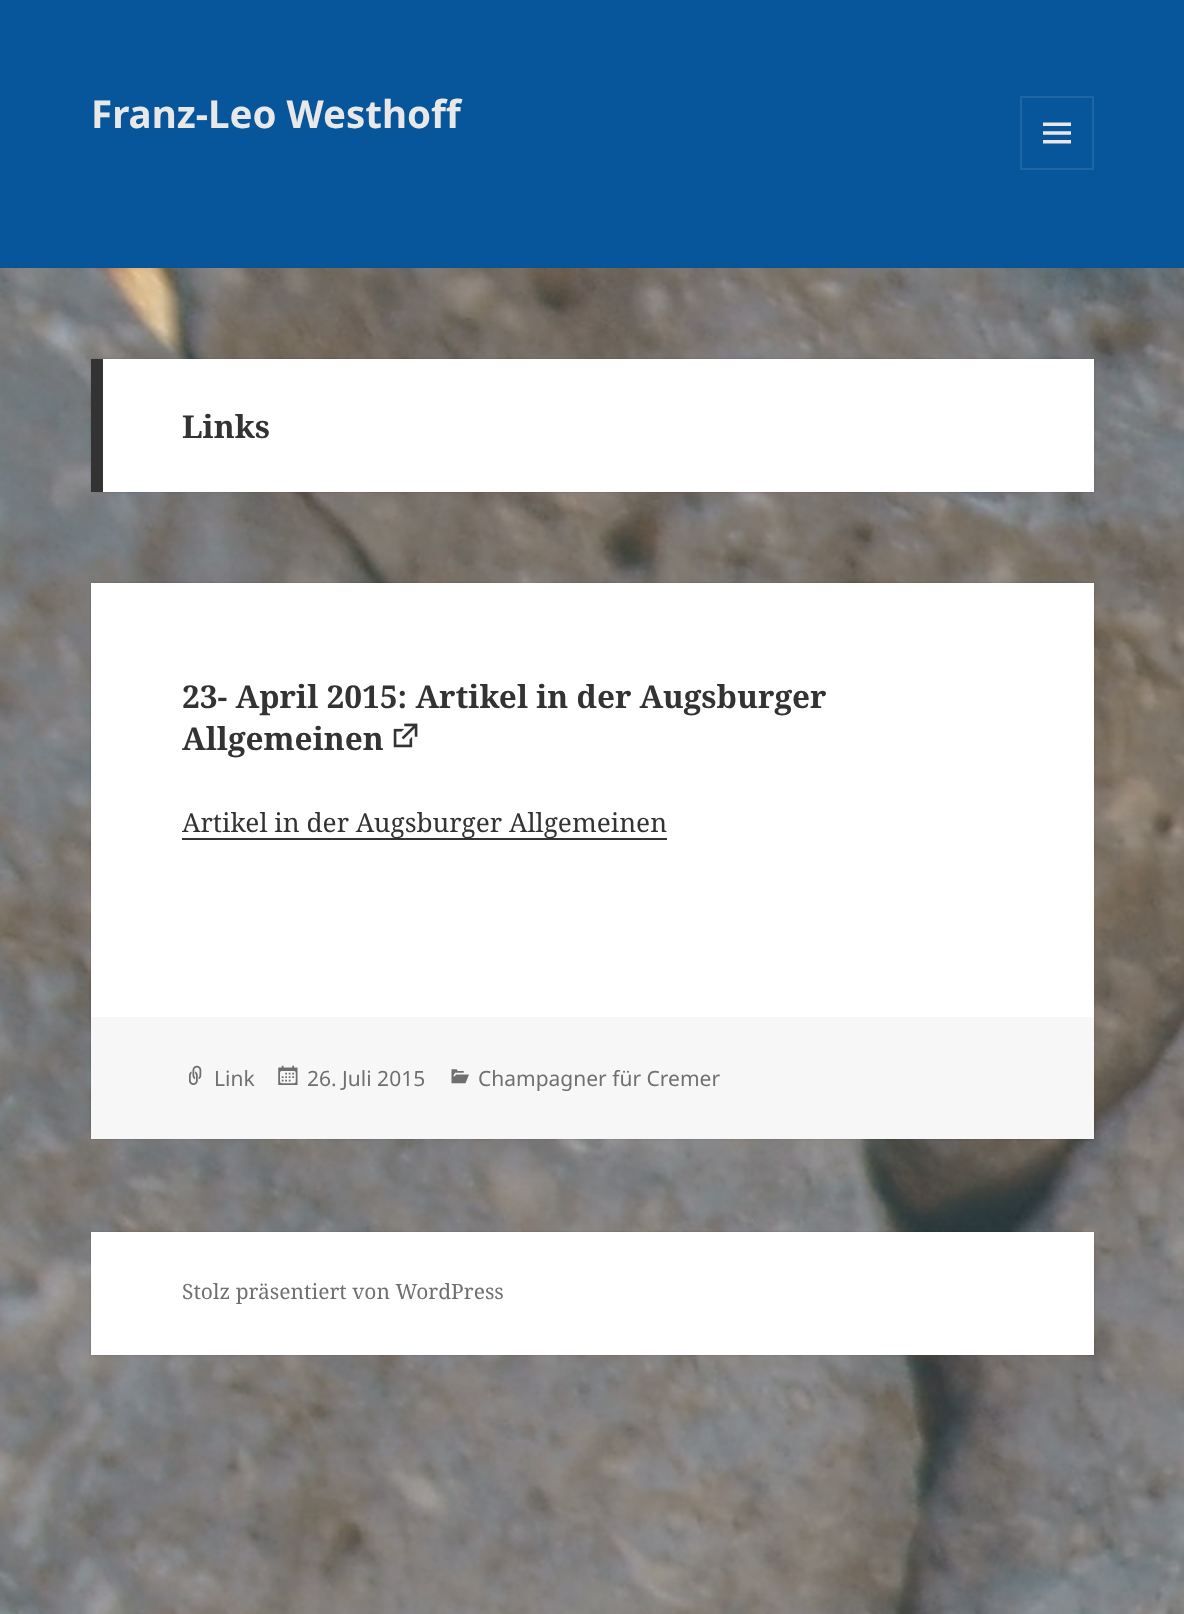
<!DOCTYPE html>
<meta charset="utf-8">
<style>body { margin: 0 } canvas { display: block }</style>
<canvas id="canvas" width="1184" height="1614"></canvas>
<script type="module">
  const canvas = document.getElementById("canvas");
  const g = canvas.getContext("2d");
  g.miterLimit = 4;
  g.fontKerning = "normal";
  function drawText(s, x, y, [font, color]) {
    g.font = font;
    g.fillStyle = color;
    g.fillText(s, x, y);
  }
  function fillBox(x, y, w, h, color) {
    g.fillStyle = color;
    g.fillRect(x, y, w, h);
  }
  async function drawPicture(src, x, y, w, h) {
    const img = new Image();
    img.src = src;
    await img.decode();
    g.drawImage(img, x, y, w, h);
  }

  const s1 = ["bold 38.5px Noto Sans", "#E8E8E8"];
  const s2 = ["bold 31.5px Noto Serif", "#333333"];
  const s3 = ["26.25px Noto Serif", "#333333"];
  const s4 = ["21px Noto Sans", "#707070"];
  const s5 = ["21px Noto Serif", "#707070"];

  fillBox(0, 0, 1184, 1614, "#FFFFFF");
  await drawPicture("pic1.png", 0, 268, 1184, 1346);
  fillBox(0, 0, 1184, 266, "#07569B");
  fillBox(0, 266, 1184, 2, "#0B5391");
  drawText("Franz-Leo Westhoff", 91, 128, s1);
  g.strokeStyle = "#1E65A3";
  g.lineWidth = 2;
  g.strokeRect(1021, 97, 72, 72);
  await drawPicture("pic2.png", 1043, 122, 28, 22);
  g.fillStyle = "rgba(0, 0, 0, 0.15)";
  g.filter = "blur(1px)";
  g.beginPath();
  g.rect(91, 359, 1003, 133);
  g.fill();
  g.filter = "none";
  fillBox(103, 359, 991, 133, "#FFFFFF");
  fillBox(91, 359, 12, 133, "#333333");
  drawText("Links", 182, 438, s2);
  g.fillStyle = "rgba(0, 0, 0, 0.15)";
  g.filter = "blur(1px)";
  g.beginPath();
  g.rect(91, 583, 1003, 556);
  g.fill();
  g.filter = "none";
  fillBox(91, 583, 1003, 434, "#FFFFFF");
  drawText("23- April 2015: Artikel in der Augsburger", 182, 708, s2);
  drawText("Allgemeinen", 182, 750, s2);
  await drawPicture("pic3.png", 393, 723, 25, 25);
  fillBox(182, 838, 485, 2, "#333333");
  drawText("Artikel in der Augsburger Allgemeinen", 182, 832, s3);
  fillBox(91, 1017, 1003, 122, "#F7F7F7");
  await drawPicture("pic4.png", 189, 1065, 13, 20);
  drawText("Link", 214, 1086, s4);
  await drawPicture("pic5.png", 278, 1065, 20, 20);
  drawText("26. Juli 2015", 307, 1086, s4);
  await drawPicture("pic6.png", 451, 1069, 18, 15);
  drawText("Champagner für Cremer", 478, 1086, s4);
  g.fillStyle = "rgba(0, 0, 0, 0.15)";
  g.filter = "blur(1px)";
  g.beginPath();
  g.rect(91, 1232, 1003, 123);
  g.fill();
  g.filter = "none";
  fillBox(91, 1232, 1003, 123, "#FFFFFF");
  drawText("Stolz präsentiert von WordPress", 182, 1299, s5);
</script>
